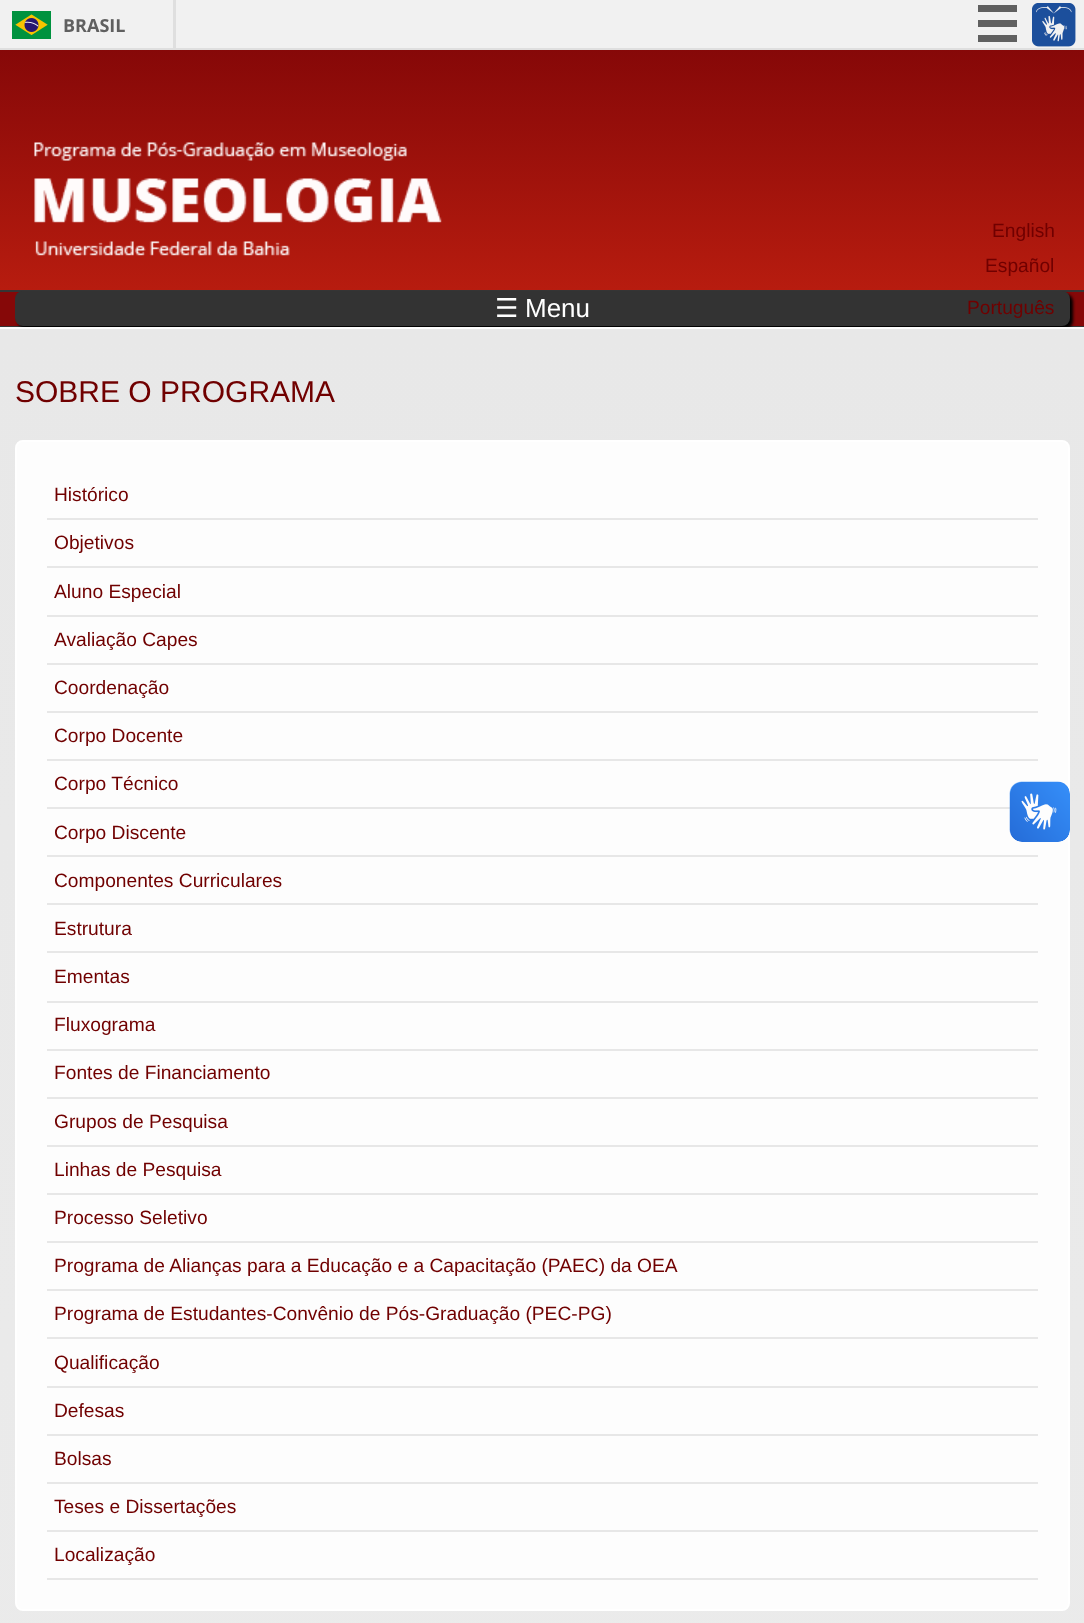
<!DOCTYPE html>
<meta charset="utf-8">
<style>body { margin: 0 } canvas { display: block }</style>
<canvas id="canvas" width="1084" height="1623"></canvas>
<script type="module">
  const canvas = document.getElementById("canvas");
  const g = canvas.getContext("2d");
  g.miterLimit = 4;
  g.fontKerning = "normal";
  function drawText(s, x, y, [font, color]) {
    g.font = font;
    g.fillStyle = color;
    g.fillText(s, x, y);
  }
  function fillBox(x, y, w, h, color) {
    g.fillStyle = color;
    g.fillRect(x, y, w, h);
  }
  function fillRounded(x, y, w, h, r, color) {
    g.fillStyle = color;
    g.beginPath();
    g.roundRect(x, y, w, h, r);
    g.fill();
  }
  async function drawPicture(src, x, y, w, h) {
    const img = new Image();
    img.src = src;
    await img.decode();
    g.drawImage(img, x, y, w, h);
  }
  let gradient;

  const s1 = ["bold 18px Open Sans", "#606060"];
  const s2 = ["26px DejaVu Sans", "#FFFFFF"];
  const s3 = ["26px Liberation Sans", "#FFFFFF"];
  const s4 = ["19.2px Liberation Sans", "#700000"];
  const s5 = ["30px Liberation Sans", "#700000"];

  fillBox(0, 0, 1084, 1623, "#F1F1F1");
  fillBox(0, 48, 1084, 2, "#DFDFDF");
  fillBox(173, 0, 3, 48, "#DFDFDF");
  await drawPicture("pic1.png", 12, 11, 39, 28);
  drawText("BRASIL", 63, 32, s1);
  fillBox(978, 5, 39, 7, "#606060");
  fillBox(978, 20, 39, 7, "#606060");
  fillBox(978, 35, 39, 7, "#606060");
  await drawPicture("pic2.png", 1032, 3, 44, 44);
  fillBox(0, 292, 1084, 34, "#860808");
  fillBox(0, 290, 1084, 2, "#353535");
  fillBox(0, 326, 1084, 1, "#353535");
  gradient = g.createLinearGradient(542, 49, 542, 290);
  gradient.addColorStop(0, "#860808");
  gradient.addColorStop(1, "#B71C0F");
  g.fillStyle = gradient;
  g.fillRect(0, 50, 1084, 240);
  g.fillStyle = "#000000";
  g.filter = "blur(1.5px)";
  g.beginPath();
  g.roundRect(18, 294, 1055, 35, 8);
  g.fill();
  g.filter = "none";
  fillRounded(15, 291, 1055, 35, 8, "#333333");
  drawText("☰", 495, 317, s2);
  drawText("Menu", 525, 317, s3);
  await drawPicture("pic3.png", 34, 142, 408, 114);
  drawText("English", 992, 237, s4);
  drawText("Español", 985, 272, s4);
  drawText("Português", 967, 314, s4);
  fillBox(0, 327, 1084, 2, "#FCFCFC");
  gradient = g.createLinearGradient(542, 329, 542, 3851);
  gradient.addColorStop(0, "#E8E8E8");
  gradient.addColorStop(1, "#EFEFEF");
  g.fillStyle = gradient;
  g.fillRect(0, 329, 1084, 1294);
  drawText("SOBRE O PROGRAMA", 15, 402, s5);
  g.fillStyle = "#FDFDFD";
  g.beginPath();
  g.roundRect(16, 441, 1053, 1169, 7);
  g.fill();
  g.strokeStyle = "#FFFFFF";
  g.lineWidth = 2;
  g.stroke();
  fillBox(47, 518, 991, 2, "#E7E7E7");
  drawText("Histórico", 54, 501, s4);
  fillBox(47, 566, 991, 2, "#E7E7E7");
  drawText("Objetivos", 54, 549, s4);
  fillBox(47, 615, 991, 2, "#E7E7E7");
  drawText("Aluno Especial", 54, 598, s4);
  fillBox(47, 663, 991, 2, "#E7E7E7");
  drawText("Avaliação Capes", 54, 646, s4);
  fillBox(47, 711, 991, 2, "#E7E7E7");
  drawText("Coordenação", 54, 694, s4);
  fillBox(47, 759, 991, 2, "#E7E7E7");
  drawText("Corpo Docente", 54, 742, s4);
  fillBox(47, 807, 963, 2, "#E7E7E7");
  drawText("Corpo Técnico", 54, 790, s4);
  fillBox(47, 855, 991, 2, "#E7E7E7");
  drawText("Corpo Discente", 54, 839, s4);
  fillBox(47, 903, 991, 2, "#E7E7E7");
  drawText("Componentes Curriculares", 54, 887, s4);
  fillBox(47, 951, 991, 2, "#E7E7E7");
  drawText("Estrutura", 54, 935, s4);
  fillBox(47, 1001, 991, 2, "#E7E7E7");
  drawText("Ementas", 54, 983, s4);
  fillBox(47, 1049, 991, 2, "#E7E7E7");
  drawText("Fluxograma", 54, 1031, s4);
  fillBox(47, 1097, 991, 2, "#E7E7E7");
  drawText("Fontes de Financiamento", 54, 1079, s4);
  fillBox(47, 1145, 991, 2, "#E7E7E7");
  drawText("Grupos de Pesquisa", 54, 1128, s4);
  fillBox(47, 1193, 991, 2, "#E7E7E7");
  drawText("Linhas de Pesquisa", 54, 1176, s4);
  fillBox(47, 1241, 991, 2, "#E7E7E7");
  drawText("Processo Seletivo", 54, 1224, s4);
  fillBox(47, 1289, 991, 2, "#E7E7E7");
  drawText("Programa de Alianças para a Educação e a Capacitação (PAEC) da OEA", 54, 1272, s4);
  fillBox(47, 1337, 991, 2, "#E7E7E7");
  drawText("Programa de Estudantes-Convênio de Pós-Graduação (PEC-PG)", 54, 1320, s4);
  fillBox(47, 1386, 991, 2, "#E7E7E7");
  drawText("Qualificação", 54, 1369, s4);
  fillBox(47, 1434, 991, 2, "#E7E7E7");
  drawText("Defesas", 54, 1417, s4);
  fillBox(47, 1482, 991, 2, "#E7E7E7");
  drawText("Bolsas", 54, 1465, s4);
  fillBox(47, 1530, 991, 2, "#E7E7E7");
  drawText("Teses e Dissertações", 54, 1513, s4);
  fillBox(47, 1578, 991, 2, "#E7E7E7");
  drawText("Localização", 54, 1561, s4);
  await drawPicture("pic4.png", 1009, 781, 61, 61);
  await drawPicture("pic5.png", 1010, 782, 60, 60);
</script>
